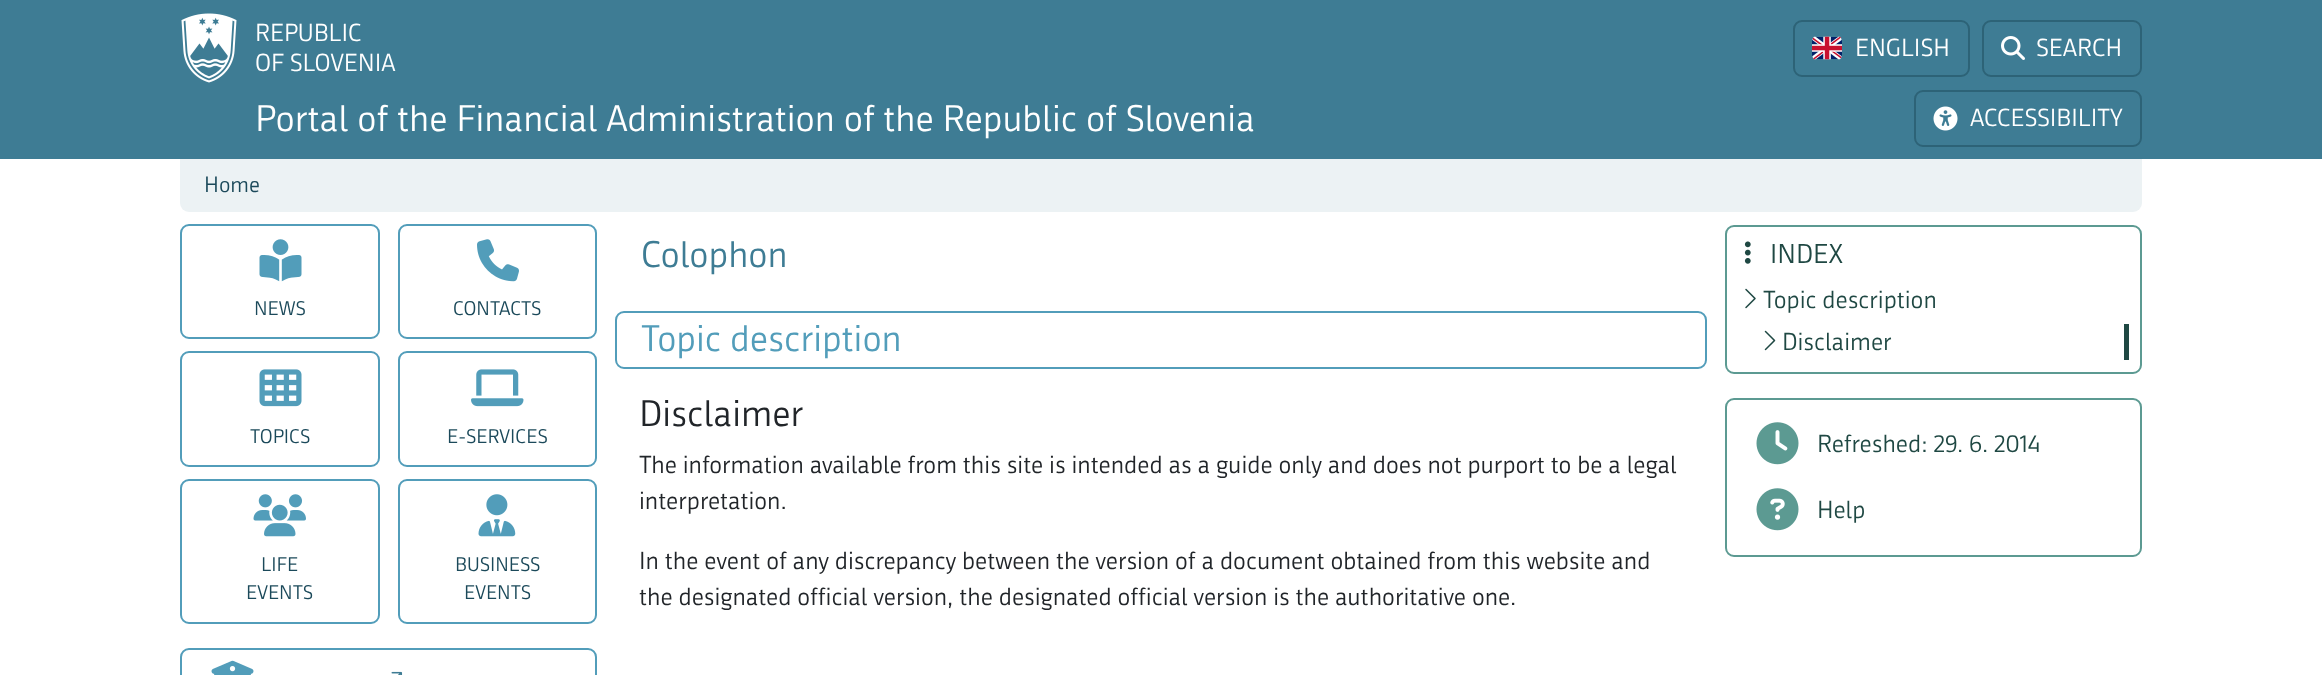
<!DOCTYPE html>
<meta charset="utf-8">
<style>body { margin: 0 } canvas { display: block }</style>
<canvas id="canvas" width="2322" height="675"></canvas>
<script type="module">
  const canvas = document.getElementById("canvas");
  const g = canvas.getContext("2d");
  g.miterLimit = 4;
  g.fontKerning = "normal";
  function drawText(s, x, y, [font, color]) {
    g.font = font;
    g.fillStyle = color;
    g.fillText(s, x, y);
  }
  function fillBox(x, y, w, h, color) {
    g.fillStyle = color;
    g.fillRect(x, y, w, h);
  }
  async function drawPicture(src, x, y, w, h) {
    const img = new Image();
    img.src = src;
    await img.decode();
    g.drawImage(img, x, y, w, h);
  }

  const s1 = ["24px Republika", "#FFFFFF"];
  const s2 = ["36px Republika", "#FFFFFF"];
  const s3 = ["21.5px Republika", "#1B495A"];
  const s4 = ["19.25px Republika", "#1B495A"];
  const s5 = ["36px Republika", "#3E7C94"];
  const s6 = ["36px Republika", "#529DBA"];
  const s7 = ["36px Republika", "#212529"];
  const s8 = ["24px Republika", "#212529"];
  const s9 = ["26.5px Republika", "#1F4843"];
  const s10 = ["24px Republika", "#1F4843"];

  fillBox(0, 0, 2322, 675, "#FFFFFF");
  fillBox(0, 0, 2322, 159, "#3E7C94");
  await drawPicture("pic1.png", 181, 13, 56, 70);
  drawText("REPUBLIC", 255, 41, s1);
  drawText("OF SLOVENIA", 255, 71, s1);
  g.beginPath();
  g.roundRect(1794, 21, 175, 55, 8);
  g.strokeStyle = "#2D6377";
  g.lineWidth = 2;
  g.stroke();
  await drawPicture("pic2.png", 1812, 36, 30, 24);
  drawText("ENGLISH", 1855, 56, s1);
  g.beginPath();
  g.roundRect(1983, 21, 158, 55, 8);
  g.stroke();
  await drawPicture("pic3.png", 2001, 36, 24, 24);
  drawText("SEARCH", 2036, 56, s1);
  drawText("Portal of the Financial Administration of the Republic of Slovenia", 255, 131, s2);
  g.beginPath();
  g.roundRect(1915, 91, 226, 55, 8);
  g.stroke();
  await drawPicture("pic4.png", 1933, 106, 25, 25);
  drawText("ACCESSIBILITY", 1970, 126, s1);
  g.fillStyle = "#ECF2F4";
  g.beginPath();
  g.roundRect(180, 159, 1962, 53, [0, 0, 9, 9]);
  g.fill();
  drawText("Home", 204, 192, s3);
  g.beginPath();
  g.roundRect(181, 225, 198, 113, 8);
  g.strokeStyle = "#529DBA";
  g.stroke();
  await drawPicture("pic5.png", 259, 239, 43, 43);
  drawText("NEWS", 254, 315, s4);
  g.beginPath();
  g.roundRect(399, 225, 197, 113, 8);
  g.stroke();
  await drawPicture("pic6.png", 477, 239, 42, 43);
  drawText("CONTACTS", 453, 315, s4);
  g.beginPath();
  g.roundRect(181, 352, 198, 114, 8);
  g.stroke();
  await drawPicture("pic7.png", 259, 369, 43, 38);
  drawText("TOPICS", 250, 443, s4);
  g.beginPath();
  g.roundRect(399, 352, 197, 114, 8);
  g.stroke();
  await drawPicture("pic8.png", 471, 369, 53, 38);
  drawText("E-SERVICES", 447, 443, s4);
  g.beginPath();
  g.roundRect(181, 480, 198, 143, 8);
  g.stroke();
  await drawPicture("pic9.png", 253, 494, 53, 43);
  drawText("LIFE", 261, 571, s4);
  drawText("EVENTS", 246, 599, s4);
  g.beginPath();
  g.roundRect(399, 480, 197, 143, 8);
  g.stroke();
  await drawPicture("pic10.png", 478, 494, 38, 43);
  drawText("BUSINESS", 455, 571, s4);
  drawText("EVENTS", 464, 599, s4);
  g.beginPath();
  g.roundRect(181, 649, 415, 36, 8);
  g.stroke();
  await drawPicture("pic11.png", 211, 660, 43, 15);
  await drawPicture("pic12.png", 391, 671, 12, 4);
  drawText("Colophon", 641, 267, s5);
  g.beginPath();
  g.roundRect(616, 312, 1090, 56, 8);
  g.stroke();
  drawText("Topic description", 641, 351, s6);
  drawText("Disclaimer", 639, 426, s7);
  drawText("The information available from this site is intended as a guide only and does not purport to be a legal", 639, 473, s8);
  drawText("interpretation.", 639, 509, s8);
  drawText("In the event of any discrepancy between the version of a document obtained from this website and", 639, 569, s8);
  drawText("the designated official version, the designated official version is the authoritative one.", 639, 605, s8);
  g.beginPath();
  g.roundRect(1726, 226, 415, 147, 8);
  g.strokeStyle = "#5C9A92";
  g.stroke();
  await drawPicture("pic13.png", 1744, 241, 7, 23);
  drawText("INDEX", 1770, 263, s9);
  await drawPicture("pic14.png", 1745, 288, 11, 21);
  drawText("Topic description", 1763, 308, s10);
  fillBox(2124, 324, 5, 36, "#1F4843");
  await drawPicture("pic15.png", 1764, 330, 12, 21);
  drawText("Disclaimer", 1782, 350, s10);
  g.beginPath();
  g.roundRect(1726, 399, 415, 157, 8);
  g.stroke();
  await drawPicture("pic16.png", 1756, 422, 43, 43);
  drawText("Refreshed: 29. 6. 2014", 1817, 452, s10);
  await drawPicture("pic17.png", 1756, 488, 43, 43);
  drawText("Help", 1817, 518, s10);
</script>
